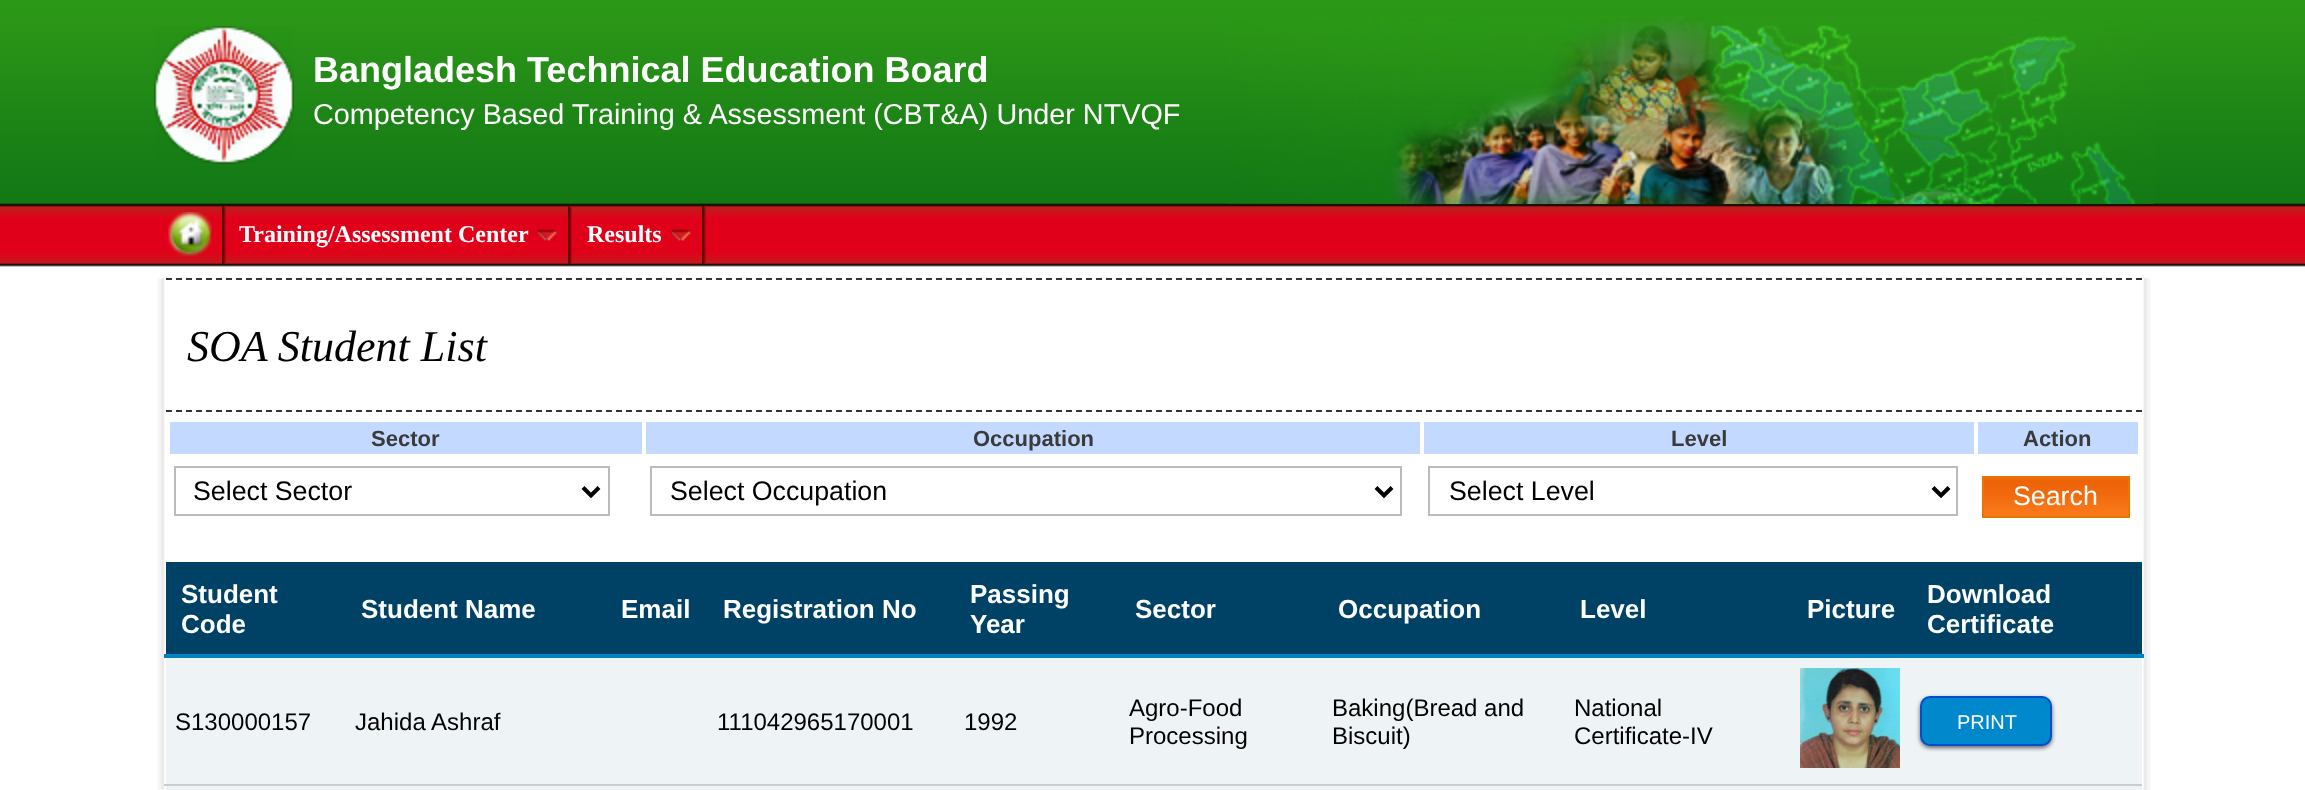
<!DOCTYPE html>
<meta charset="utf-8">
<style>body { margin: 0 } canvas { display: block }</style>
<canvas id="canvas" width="2305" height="790"></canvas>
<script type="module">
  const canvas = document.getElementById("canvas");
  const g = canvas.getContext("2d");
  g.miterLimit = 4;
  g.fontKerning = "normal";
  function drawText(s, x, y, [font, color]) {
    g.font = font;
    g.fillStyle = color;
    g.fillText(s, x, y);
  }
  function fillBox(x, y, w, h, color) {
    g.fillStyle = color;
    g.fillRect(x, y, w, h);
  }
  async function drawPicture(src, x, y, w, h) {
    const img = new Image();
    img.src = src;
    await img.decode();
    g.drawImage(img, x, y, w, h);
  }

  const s1 = ["bold 36px Liberation Sans", "#FFFFFF"];
  const s2 = ["28.8px Liberation Sans", "#FFFFFF"];
  const s3 = ["bold 24px Liberation Serif", "#FFFFFF"];
  const s4 = ["italic 44px Liberation Serif", "#000000"];
  const s5 = ["bold 22px Liberation Sans", "#3A3A3A"];
  const s6 = ["26.75px Liberation Sans", "#000000"];
  const s7 = ["26.75px Liberation Sans", "#FFFFFF"];
  const s8 = ["bold 26px Liberation Sans", "#FFFFFF"];
  const s9 = ["24px Liberation Sans", "#000000"];
  const s10 = ["20px Liberation Sans", "#FFFFFF"];

  fillBox(0, 0, 2305, 790, "#FFFFFF");
  await drawPicture("pic1.png", 0, 0, 2305, 267);
  await drawPicture("pic2.png", 1228, 16, 926, 188);
  await drawPicture("pic3.png", 154, 26, 140, 138);
  drawText("Bangladesh Technical Education Board", 313, 82, s1);
  drawText("Competency Based Training & Assessment (CBT&A) Under NTVQF", 313, 124, s2);
  await drawPicture("pic4.png", 222, 206, 4, 58);
  await drawPicture("pic5.png", 168, 212, 44, 44);
  await drawPicture("pic4.png", 568, 206, 4, 58);
  drawText("Training/Assessment Center", 239, 242, s3);
  await drawPicture("pic6.png", 537, 229, 20, 12);
  await drawPicture("pic4.png", 702, 206, 4, 58);
  drawText("Results", 587, 242, s3);
  await drawPicture("pic6.png", 671, 229, 20, 12);
  await drawPicture("pic7.png", 157, 278, 1994, 512);
  g.beginPath();
  g.moveTo(166, 279);
  g.lineTo(2142, 279);
  g.strokeStyle = "#333333";
  g.lineWidth = 2;
  g.setLineDash([6, 4]);
  g.stroke();
  g.beginPath();
  g.moveTo(166, 411);
  g.lineTo(2142, 411);
  g.stroke();
  drawText("SOA Student List", 187, 361, s4);
  fillBox(170, 422, 472, 32, "#C3D9FF");
  drawText("Sector", 371, 446, s5);
  fillBox(646, 422, 774, 32, "#C3D9FF");
  drawText("Occupation", 973, 446, s5);
  fillBox(1424, 422, 550, 32, "#C3D9FF");
  drawText("Level", 1671, 446, s5);
  fillBox(1978, 422, 160, 32, "#C3D9FF");
  drawText("Action", 2023, 446, s5);
  g.strokeStyle = "#BBBBBB";
  g.setLineDash([]);
  g.strokeRect(175, 467, 434, 48);
  g.beginPath();
  g.moveTo(583, 487.5);
  g.lineTo(591, 495.5);
  g.lineTo(599, 487.5);
  g.strokeStyle = "#000000";
  g.lineWidth = 4;
  g.stroke();
  drawText("Select Sector", 193, 500, s6);
  g.strokeStyle = "#BBBBBB";
  g.lineWidth = 2;
  g.strokeRect(651, 467, 750, 48);
  g.beginPath();
  g.moveTo(1376, 487.5);
  g.lineTo(1384, 495.5);
  g.lineTo(1392, 487.5);
  g.strokeStyle = "#000000";
  g.lineWidth = 4;
  g.stroke();
  drawText("Select Occupation", 670, 500, s6);
  g.strokeStyle = "#BBBBBB";
  g.lineWidth = 2;
  g.strokeRect(1429, 467, 528, 48);
  g.beginPath();
  g.moveTo(1933, 487.5);
  g.lineTo(1941, 495.5);
  g.lineTo(1949, 487.5);
  g.strokeStyle = "#000000";
  g.lineWidth = 4;
  g.stroke();
  drawText("Select Level", 1449, 500, s6);
  await drawPicture("pic8.png", 1984, 478, 144, 38);
  g.strokeStyle = "#EA7400";
  g.lineWidth = 2;
  g.strokeRect(1983, 477, 146, 40);
  drawText("Search", 2013, 505, s7);
  fillBox(166, 562, 1976, 92, "#004266");
  drawText("Student", 181, 603, s8);
  drawText("Code", 181, 633, s8);
  drawText("Student Name", 361, 618, s8);
  drawText("Email", 621, 618, s8);
  drawText("Registration No", 723, 618, s8);
  drawText("Passing", 970, 603, s8);
  drawText("Year", 970, 633, s8);
  drawText("Sector", 1135, 618, s8);
  drawText("Occupation", 1338, 618, s8);
  drawText("Level", 1580, 618, s8);
  drawText("Picture", 1807, 618, s8);
  fillBox(164, 654, 1980, 4, "#0082C0");
  drawText("Download", 1927, 603, s8);
  drawText("Certificate", 1927, 633, s8);
  fillBox(166, 658, 1976, 126, "#EEF3F6");
  drawText("S130000157", 175, 730, s9);
  drawText("Jahida Ashraf", 355, 730, s9);
  drawText("111042965170001", 717, 730, s9);
  drawText("1992", 964, 730, s9);
  drawText("Agro-Food", 1129, 716, s9);
  drawText("Processing", 1129, 744, s9);
  drawText("Baking(Bread and", 1332, 716, s9);
  drawText("Biscuit)", 1332, 744, s9);
  drawText("National", 1574, 716, s9);
  drawText("Certificate-IV", 1574, 744, s9);
  await drawPicture("pic9.png", 1800, 668, 100, 100);
  fillBox(164, 784, 1978, 2, "#CCCCCC");
  g.fillStyle = "#666666";
  g.filter = "blur(2px)";
  g.beginPath();
  g.roundRect(1920, 698, 132, 50, 10);
  g.fill();
  g.filter = "none";
  g.fillStyle = "#0088CC";
  g.beginPath();
  g.roundRect(1921, 697, 130, 48, 9);
  g.fill();
  g.strokeStyle = "#004FCC";
  g.stroke();
  drawText("PRINT", 1957, 729, s10);
  fillBox(166, 786, 1976, 4, "#EEF3F6");
</script>
